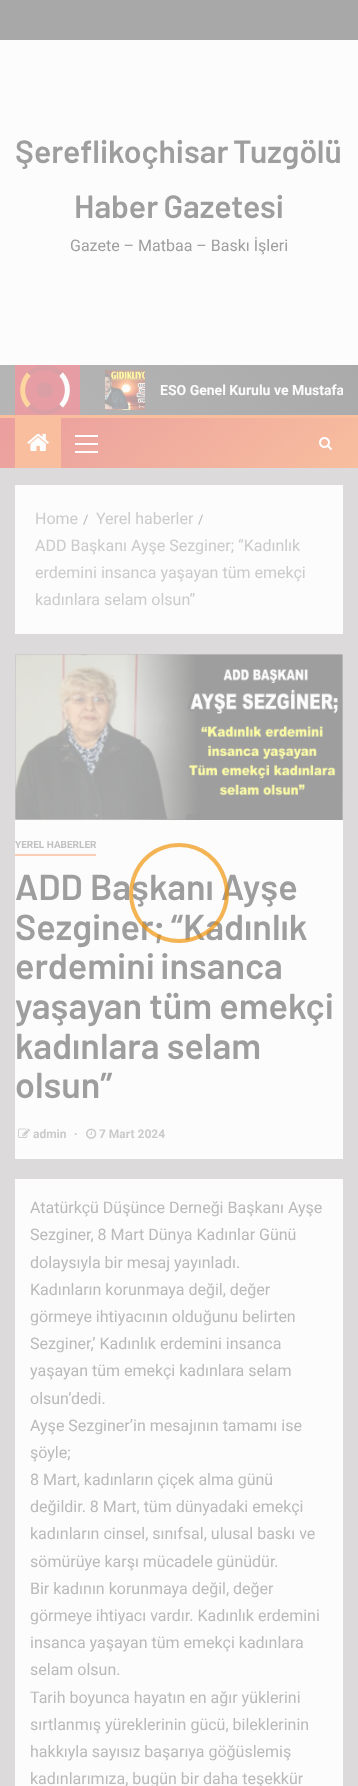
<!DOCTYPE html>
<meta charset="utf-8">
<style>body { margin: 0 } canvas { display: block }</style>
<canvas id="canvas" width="358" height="1786"></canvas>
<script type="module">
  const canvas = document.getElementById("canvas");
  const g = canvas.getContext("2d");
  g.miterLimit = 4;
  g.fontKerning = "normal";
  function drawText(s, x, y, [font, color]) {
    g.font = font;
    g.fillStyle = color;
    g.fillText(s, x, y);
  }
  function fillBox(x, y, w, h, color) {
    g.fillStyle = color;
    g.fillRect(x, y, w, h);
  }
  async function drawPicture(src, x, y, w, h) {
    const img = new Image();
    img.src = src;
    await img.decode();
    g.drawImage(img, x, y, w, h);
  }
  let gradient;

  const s1 = ["600 32px Barlow", "#9E9E9E"];
  const s2 = ["16px Roboto", "#9E9E9E"];
  const s3 = ["bold 14px Roboto", "#FCFCFC"];
  const s4 = ["16px Roboto", "#CBCBCB"];
  const s5 = ["13px Roboto", "#B3B5B8"];
  const s6 = ["bold 10px Roboto", "#C2C2C2"];
  const s7 = ["600 36px Barlow", "#9E9E9E"];
  const s8 = ["bold 12px Roboto", "#CBCBCB"];
  const s9 = ["bold 12px Liberation Sans", "#CBCBCB"];
  const s10 = ["16px Roboto", "#BABABA"];

  fillBox(0, 0, 358, 1786, "#DCDADB");
  fillBox(0, 40, 358, 325, "#FCFCFC");
  fillBox(0, 0, 358, 40, "#A8A8A8");
  g.wordSpacing = "-2px";
  drawText("Şereflikoçhisar Tuzgölü", 15, 163, s1);
  g.wordSpacing = "-1px";
  drawText("Haber Gazetesi", 74, 218, s1);
  g.wordSpacing = "0px";
  drawText("Gazete – Matbaa – Baskı İşleri", 70, 251, s2);
  gradient = g.createLinearGradient(77, 492, 281, 288);
  gradient.addColorStop(0, "#B6B6B6");
  gradient.addColorStop(1, "#AAAAAA");
  g.fillStyle = gradient;
  g.fillRect(0, 365, 358, 50);
  fillBox(15, 365, 65, 50, "#E69EA4");
  g.beginPath();
  g.moveTo(61, 374);
  g.bezierCurveTo(69.5, 383, 69.5, 397, 61, 406);
  g.strokeStyle = "#FCFCFC";
  g.lineWidth = 5;
  g.stroke();
  g.beginPath();
  g.moveTo(29, 406);
  g.bezierCurveTo(20.5, 397, 20.5, 383, 29, 374);
  g.strokeStyle = "#FCD69E";
  g.stroke();
  g.beginPath();
  g.moveTo(29, 374);
  g.bezierCurveTo(38, 365.5, 52, 365.5, 61, 374);
  g.moveTo(61, 406);
  g.bezierCurveTo(52, 414.5, 38, 414.5, 29, 406);
  g.strokeStyle = "#DA9FA4";
  g.stroke();
  g.fillStyle = "#DA9FA4";
  g.beginPath();
  g.arc(45, 390, 8, 0, Math.PI * 2);
  g.fill();
  await drawPicture("pic1.png", 105, 370, 40, 40);
  g.save();
  g.beginPath();
  g.rect(85, 370, 258, 40);
  g.clip();
  drawText("ESO Genel Kurulu ve Mustafa", 160, 395, s3);
  g.restore();
  gradient = g.createLinearGradient(93, 340, 265, 546);
  gradient.addColorStop(0, "#EA9E9E");
  gradient.addColorStop(1, "#F8BE9E");
  g.fillStyle = gradient;
  g.fillRect(0, 418, 358, 50);
  fillBox(0, 415, 358, 3, "#F8BE9E");
  fillBox(15, 418, 46, 50, "#F8BE9E");
  await drawPicture("pic2.png", 27, 433, 22, 18);
  fillBox(75, 443, 23, 2, "#FCFCFC");
  fillBox(75, 435, 23, 2, "#FCFCFC");
  fillBox(75, 451, 23, 2, "#FCFCFC");
  await drawPicture("pic3.png", 319, 437, 13, 13);
  fillBox(15, 485, 328, 149, "#FCFCFC");
  drawText("Home", 35, 524, s4);
  drawText("/", 83, 524, s5);
  drawText("Yerel haberler", 96, 524, s4);
  drawText("/", 198, 524, s5);
  drawText("ADD Başkanı Ayşe Sezginer; “Kadınlık", 35, 551, s4);
  drawText("erdemini insanca yaşayan tüm emekçi", 35, 578, s4);
  drawText("kadınlara selam olsun”", 35, 605, s4);
  fillBox(15, 820, 328, 339, "#FCFCFC");
  await drawPicture("pic4.png", 15, 654, 328, 166);
  fillBox(15, 854, 81, 2, "#F9CDB6");
  drawText("YEREL HABERLER", 15, 848, s6);
  drawText("ADD Başkanı Ayşe", 15, 900, s7);
  g.wordSpacing = "-1px";
  drawText("Sezginer; “Kadınlık", 15, 940, s7);
  g.wordSpacing = "-2px";
  drawText("erdemini insanca", 15, 979, s7);
  g.wordSpacing = "0px";
  drawText("yaşayan tüm emekçi", 15, 1019, s7);
  drawText("kadınlara selam", 15, 1059, s7);
  drawText("olsun”", 15, 1098, s7);
  await drawPicture("pic5.png", 18, 1128, 12, 10);
  drawText("admin", 33, 1138, s8);
  drawText("∙", 74, 1138, s9);
  await drawPicture("pic6.png", 86, 1128, 11, 11);
  drawText("7 Mart 2024", 99, 1138, s8);
  fillBox(15, 1179, 328, 607, "#FCFCFC");
  drawText("Atatürkçü Düşünce Derneği Başkanı Ayşe", 30, 1213, s10);
  drawText("Sezginer, 8 Mart Dünya Kadınlar Günü", 30, 1240, s10);
  drawText("dolaysıyla bir mesaj yayınladı.", 30, 1268, s10);
  drawText("Kadınların korunmaya değil, değer", 30, 1295, s10);
  drawText("görmeye ihtiyacının olduğunu belirten", 30, 1322, s10);
  drawText("Sezginer,’ Kadınlık erdemini insanca", 30, 1349, s10);
  drawText("yaşayan tüm emekçi kadınlara selam", 30, 1376, s10);
  drawText("olsun’dedi.", 30, 1404, s10);
  drawText("Ayşe Sezginer’in mesajının tamamı ise", 30, 1431, s10);
  drawText("şöyle;", 30, 1458, s10);
  drawText("8 Mart, kadınların çiçek alma günü", 30, 1485, s10);
  drawText("değildir. 8 Mart, tüm dünyadaki emekçi", 30, 1512, s10);
  drawText("kadınların cinsel, sınıfsal, ulusal baskı ve", 30, 1539, s10);
  drawText("sömürüye karşı mücadele günüdür.", 30, 1567, s10);
  drawText("Bir kadının korunmaya değil, değer", 30, 1594, s10);
  drawText("görmeye ihtiyacı vardır. Kadınlık erdemini", 30, 1621, s10);
  drawText("insanca yaşayan tüm emekçi kadınlara", 30, 1648, s10);
  drawText("selam olsun.", 30, 1675, s10);
  drawText("Tarih boyunca hayatın en ağır yüklerini", 30, 1703, s10);
  drawText("sırtlanmış yüreklerinin gücü, bileklerinin", 30, 1730, s10);
  drawText("hakkıyla sayısız başarıya göğüslemiş", 30, 1757, s10);
  drawText("kadınlarımıza, bugün bir daha teşekkür", 30, 1784, s10);
  g.beginPath();
  g.arc(179, 893, 48, 0, Math.PI * 2);
  g.strokeStyle = "rgba(64, 64, 64, 0.13)";
  g.lineWidth = 4;
  g.stroke();
  g.beginPath();
  g.moveTo(179, 941);
  g.bezierCurveTo(169.5, 941, 160, 938, 152.5, 933);
  g.bezierCurveTo(113, 907, 132, 845, 179, 845);
  g.strokeStyle = "rgba(255, 152, 0, 0.63)";
  g.stroke();
  g.beginPath();
  g.moveTo(179, 845);
  g.bezierCurveTo(226, 845, 245, 907, 205.5, 933);
  g.bezierCurveTo(198, 938, 188.5, 941, 179, 941);
  g.stroke();
</script>
